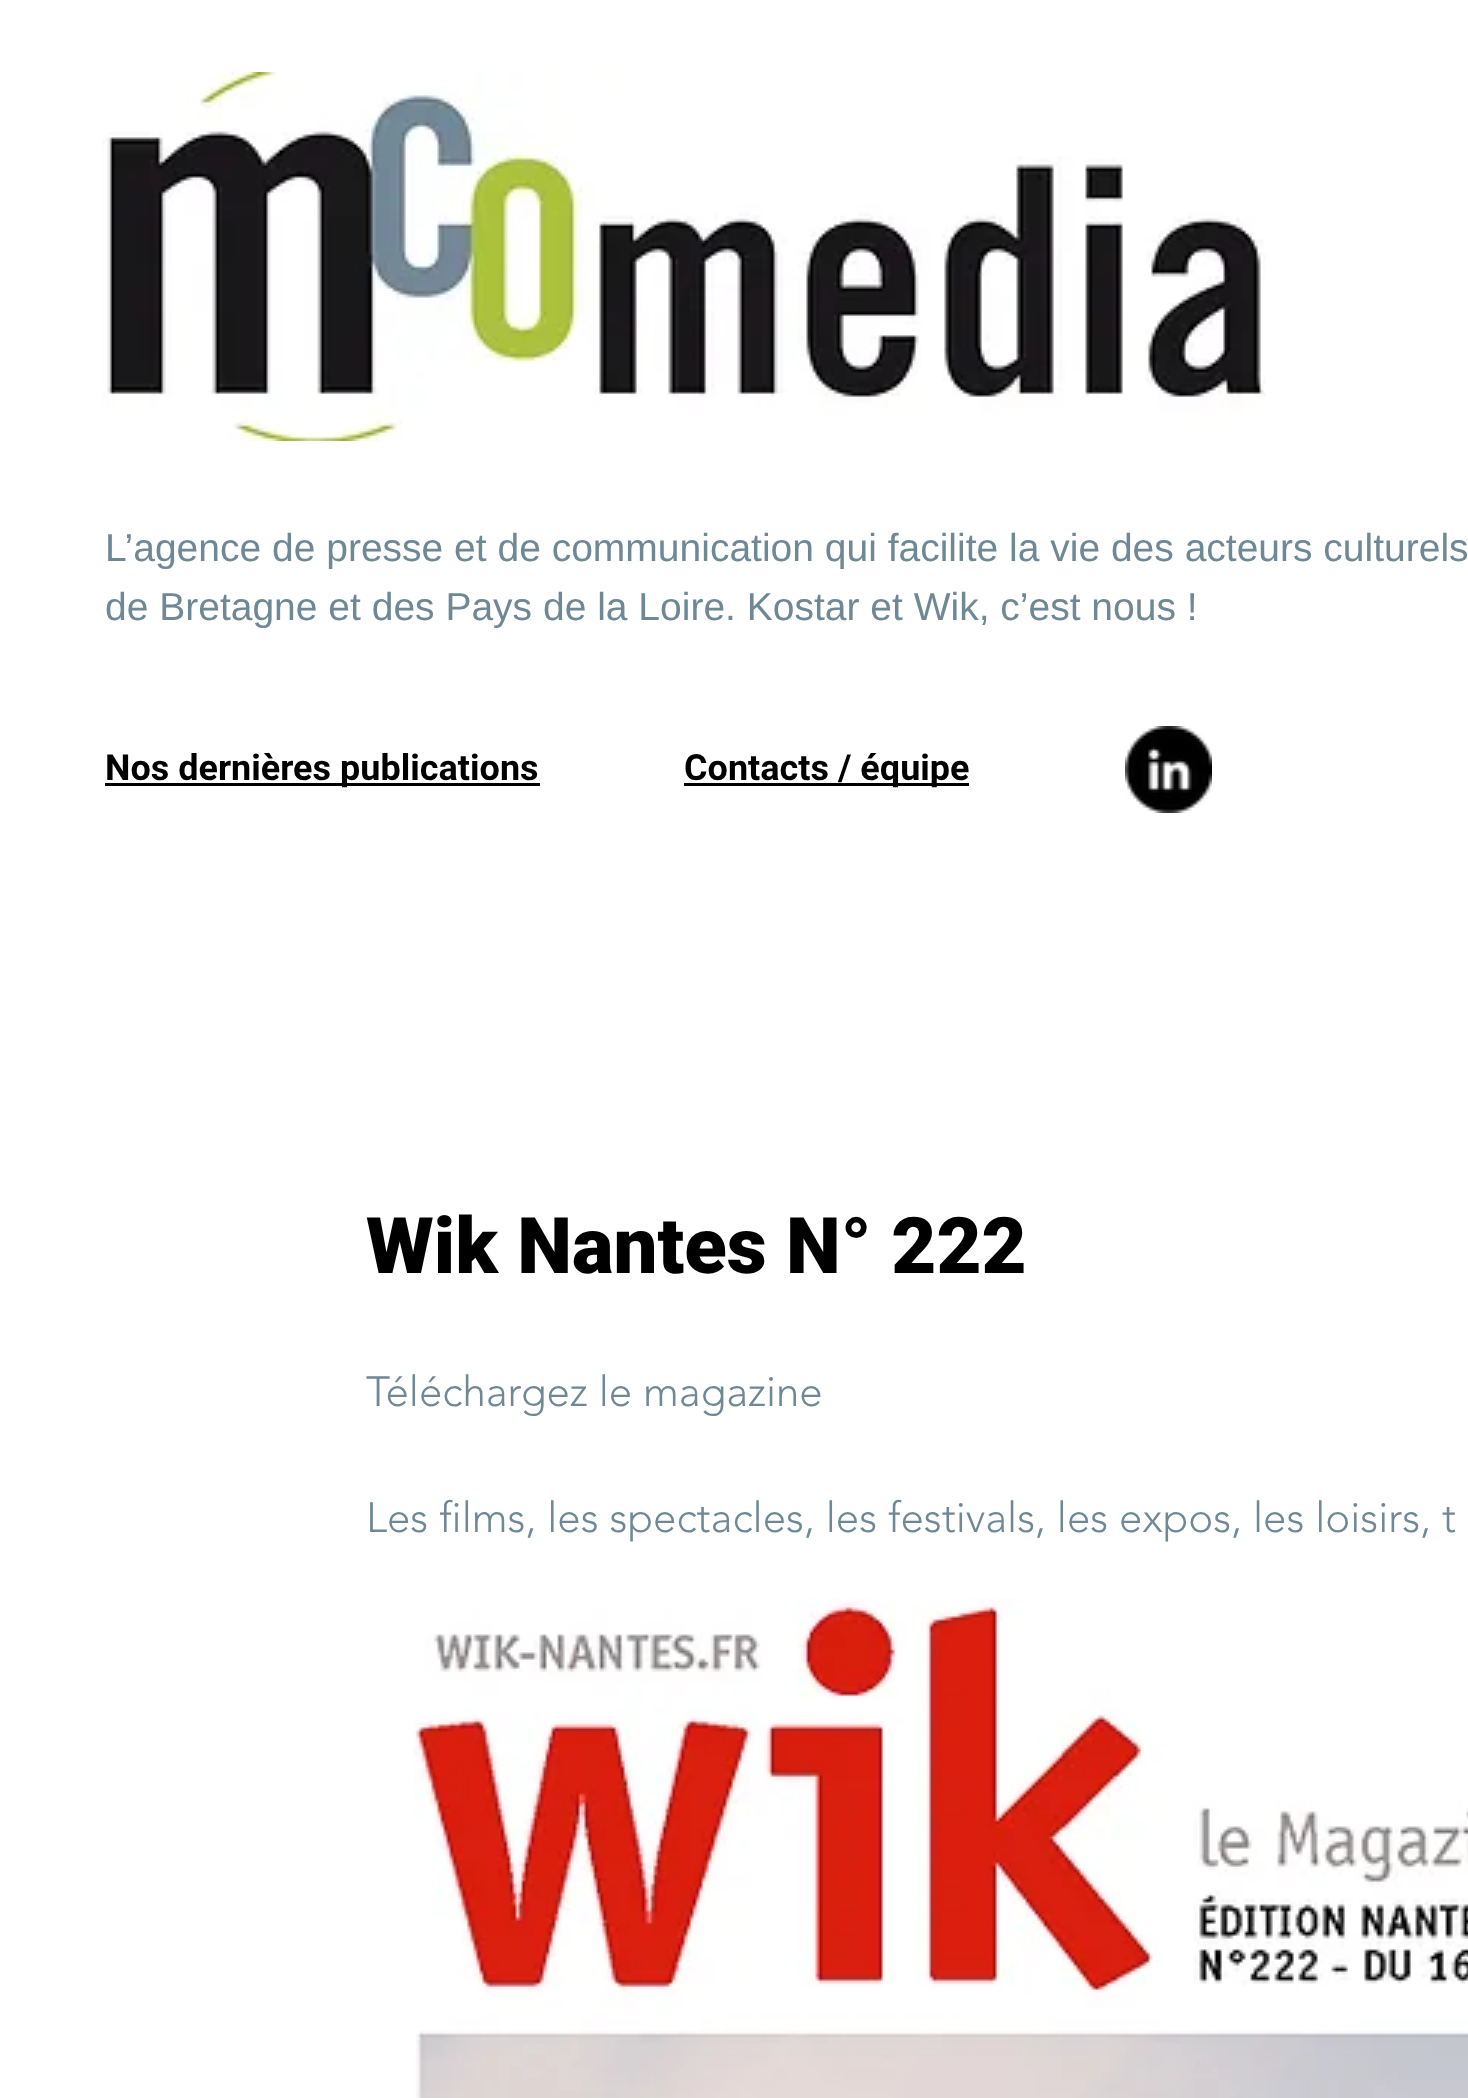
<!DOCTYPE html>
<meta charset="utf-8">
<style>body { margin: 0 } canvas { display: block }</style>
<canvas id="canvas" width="1468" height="2098"></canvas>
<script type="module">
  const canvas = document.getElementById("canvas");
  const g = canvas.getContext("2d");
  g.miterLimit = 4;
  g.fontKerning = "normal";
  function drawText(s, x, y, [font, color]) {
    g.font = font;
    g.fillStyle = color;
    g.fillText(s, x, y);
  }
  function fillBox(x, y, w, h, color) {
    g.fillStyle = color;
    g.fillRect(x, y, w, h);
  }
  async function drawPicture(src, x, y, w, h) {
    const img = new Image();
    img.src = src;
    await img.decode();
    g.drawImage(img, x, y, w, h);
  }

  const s1 = ["39px Liberation Sans", "#6F8896"];
  const s2 = ["bold 36px Roboto", "#000000"];
  const s3 = ["900 78px Roboto", "#000000"];
  const s4 = ["300 42px 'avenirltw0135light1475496'", "#6F8896"];

  fillBox(0, 0, 1468, 2098, "#FFFFFF");
  await drawPicture("pic1.png", 102, 72, 1164, 369);
  drawText("L’agence de presse et de communication qui facilite la vie des acteurs culturels", 105, 561, s1);
  drawText("de Bretagne et des Pays de la Loire. Kostar et Wik, c’est nous !", 105, 620, s1);
  fillBox(105, 783, 435, 3, "#000000");
  drawText("Nos dernières publications", 105, 780, s2);
  fillBox(684, 783, 285, 3, "#000000");
  drawText("Contacts / équipe", 684, 780, s2);
  await drawPicture("pic2.png", 1125, 726, 87, 87);
  drawText("Wik Nantes N° 222", 366, 1273, s3);
  drawText("Téléchargez le magazine", 366, 1406, s4);
  drawText("Les films, les spectacles, les festivals, les expos, les loisirs, t", 366, 1532, s4);
  await drawPicture("pic3.png", 413, 1598, 1055, 500);
</script>
